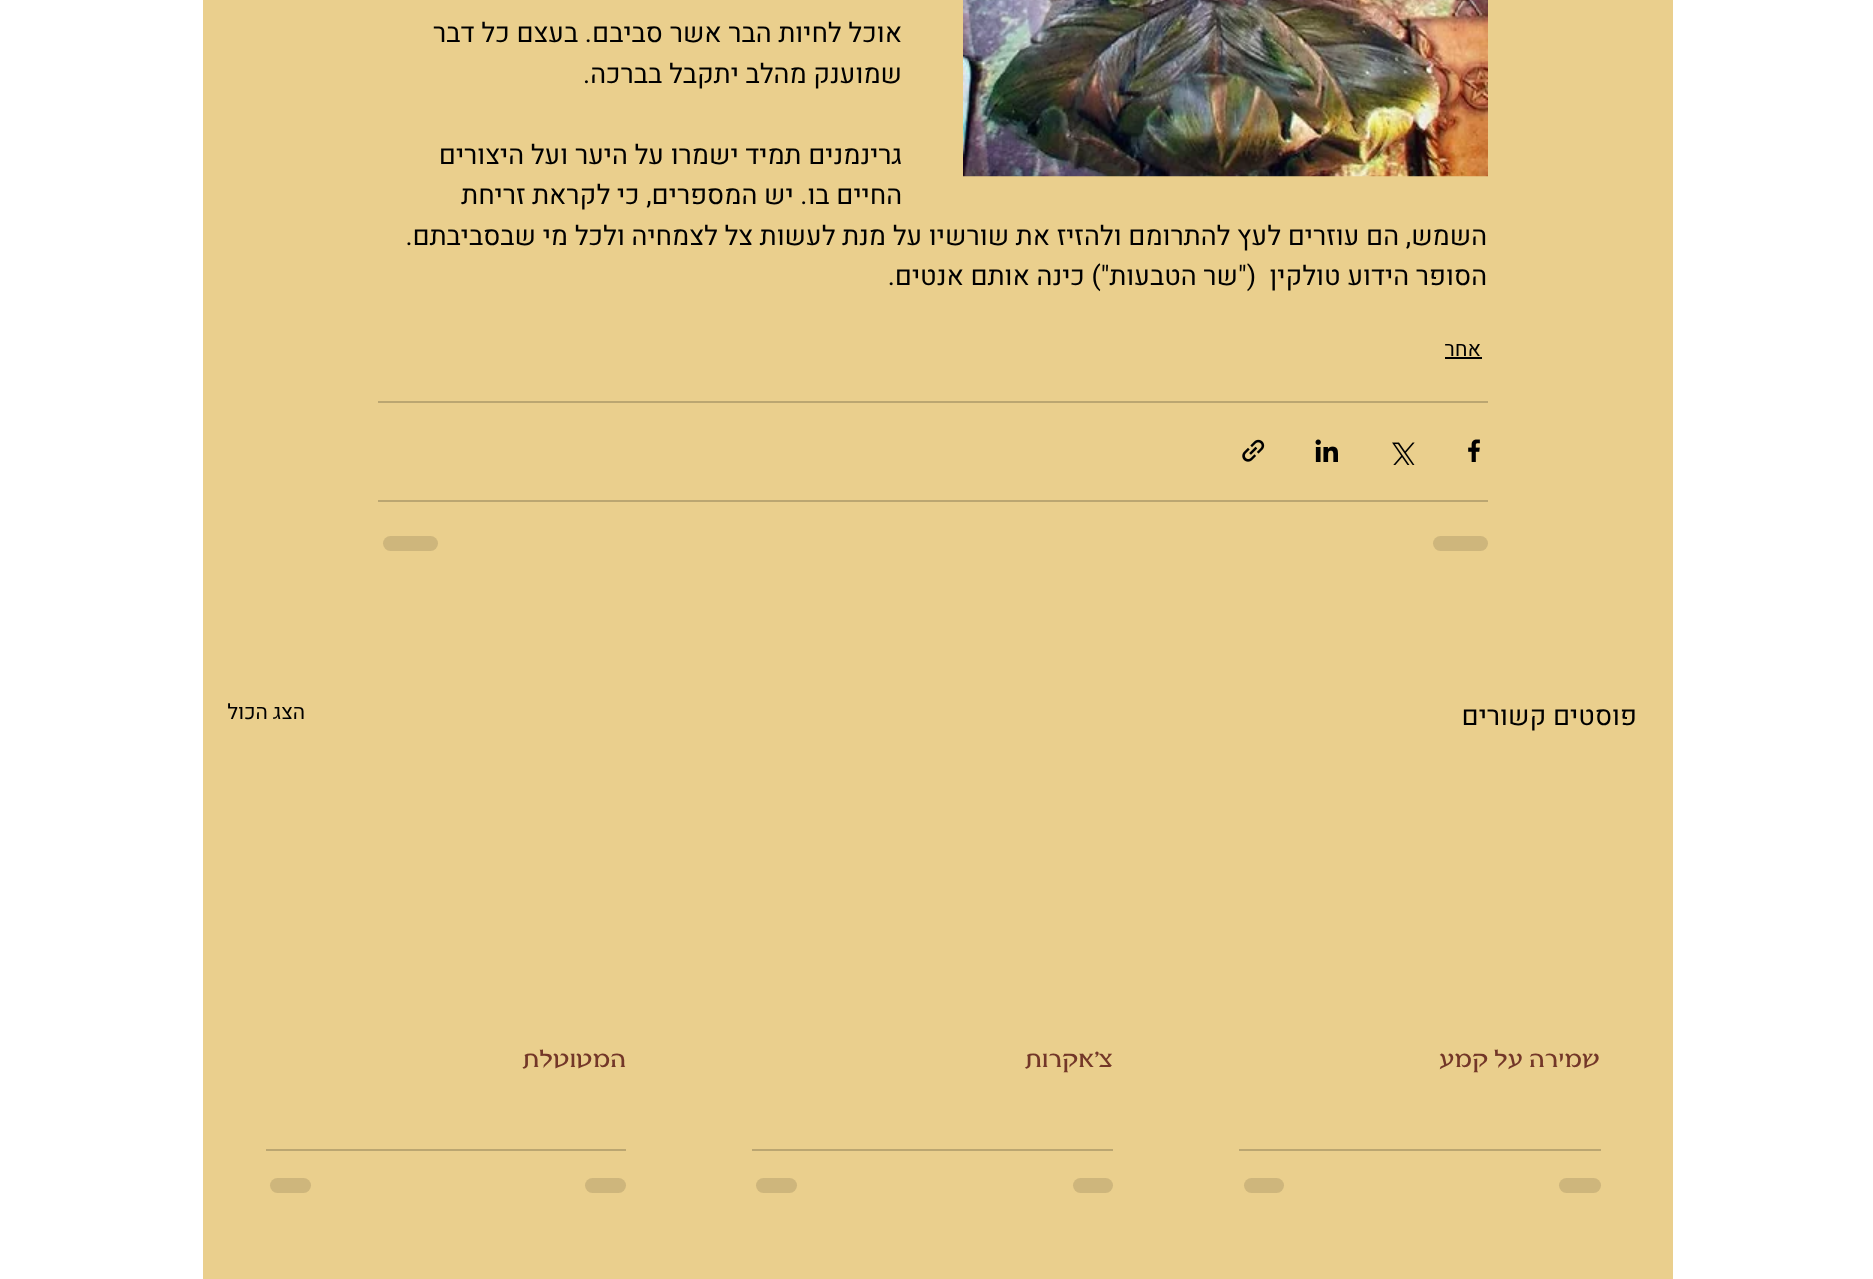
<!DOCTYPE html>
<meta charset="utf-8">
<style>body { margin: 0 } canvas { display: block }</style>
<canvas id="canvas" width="1873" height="1279"></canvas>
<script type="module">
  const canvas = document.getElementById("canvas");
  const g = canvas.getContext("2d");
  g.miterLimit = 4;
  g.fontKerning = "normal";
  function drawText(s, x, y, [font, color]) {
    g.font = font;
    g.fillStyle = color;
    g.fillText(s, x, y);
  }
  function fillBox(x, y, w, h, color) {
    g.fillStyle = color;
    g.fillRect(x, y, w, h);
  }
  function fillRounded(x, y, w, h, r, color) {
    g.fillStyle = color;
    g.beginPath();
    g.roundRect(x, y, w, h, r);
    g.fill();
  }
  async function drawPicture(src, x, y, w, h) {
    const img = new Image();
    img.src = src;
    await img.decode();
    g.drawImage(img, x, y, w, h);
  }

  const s1 = ["27px Heebo", "#000000"];
  const s2 = ["21px Heebo", "#000000"];
  const s3 = ["27px 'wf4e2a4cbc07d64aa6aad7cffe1'", "#733728"];

  fillBox(0, 0, 1873, 1279, "#FFFFFF");
  fillBox(203, 0, 1470, 1279, "#EACF8D");
  await drawPicture("pic1.png", 963, 0, 525, 177);
  g.direction = "rtl";
  drawText("אוכל לחיות הבר אשר סביבם. בעצם כל דבר", 902, 42, s1);
  drawText("שמוענק מהלב יתקבל בברכה.", 902, 83, s1);
  drawText("גרינמנים תמיד ישמרו על היער ועל היצורים", 902, 164, s1);
  drawText("החיים בו. יש המספרים, כי לקראת זריחת", 902, 204, s1);
  drawText("השמש, הם עוזרים לעץ להתרומם ולהזיז את שורשיו על מנת לעשות צל לצמחיה ולכל מי שבסביבתם.", 1487, 245, s1);
  drawText("הסופר הידוע טולקין  (\"שר הטבעות\") כינה אותם אנטים.", 1487, 285, s1);
  drawText("אחר", 1481, 356, s2);
  fillBox(1445, 357, 37, 2, "#000000");
  fillBox(378, 401, 1110, 2, "#BBA671");
  await drawPicture("pic2.png", 1468, 439, 12, 23);
  await drawPicture("pic3.png", 1392, 442, 23, 23);
  await drawPicture("pic4.png", 1315, 439, 23, 23);
  await drawPicture("pic5.png", 1242, 439, 23, 23);
  fillBox(378, 500, 1110, 2, "#BBA671");
  fillRounded(1433, 536, 55, 15, 7.5, "#CEB67C");
  fillRounded(383, 536, 55, 15, 7.5, "#CEB67C");
  drawText("פוסטים קשורים", 1637, 725, s1);
  drawText("הצג הכול", 305, 719, s2);
  drawText("שמירה על קמע", 1600, 1067, s3);
  fillBox(1239, 1149, 362, 2, "#BBA671");
  fillRounded(1559, 1178, 42, 15, 7.5, "#CEB67C");
  fillRounded(1244, 1178, 40, 15, 7.5, "#CEB67C");
  drawText("צ'אקרות", 1113, 1067, s3);
  fillBox(752, 1149, 361, 2, "#BBA671");
  fillRounded(1073, 1178, 40, 15, 7.5, "#CEB67C");
  fillRounded(756, 1178, 41, 15, 7.5, "#CEB67C");
  drawText("המטוטלת", 626, 1067, s3);
  fillBox(266, 1149, 360, 2, "#BBA671");
  fillRounded(585, 1178, 41, 15, 7.5, "#CEB67C");
  fillRounded(270, 1178, 41, 15, 7.5, "#CEB67C");
</script>
